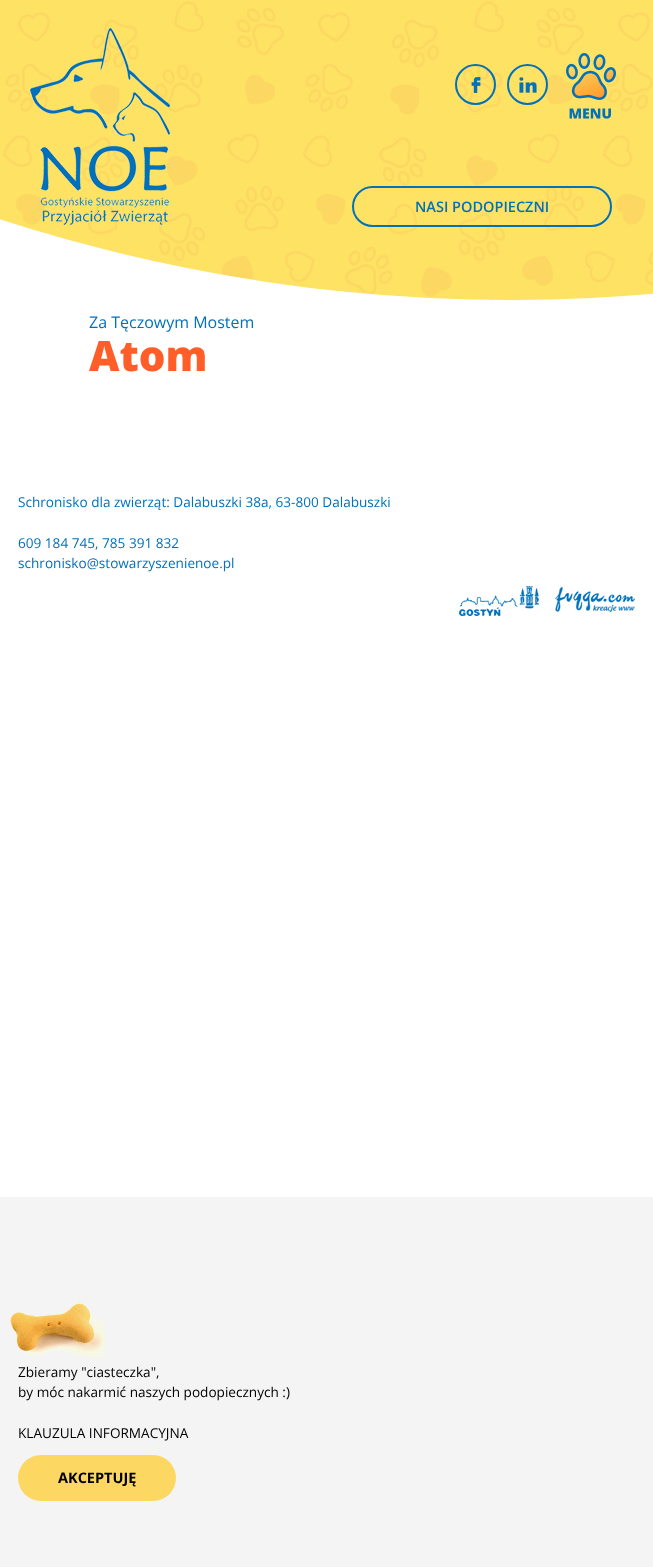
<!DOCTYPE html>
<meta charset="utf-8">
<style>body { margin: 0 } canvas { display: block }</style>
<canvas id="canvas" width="653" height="1567"></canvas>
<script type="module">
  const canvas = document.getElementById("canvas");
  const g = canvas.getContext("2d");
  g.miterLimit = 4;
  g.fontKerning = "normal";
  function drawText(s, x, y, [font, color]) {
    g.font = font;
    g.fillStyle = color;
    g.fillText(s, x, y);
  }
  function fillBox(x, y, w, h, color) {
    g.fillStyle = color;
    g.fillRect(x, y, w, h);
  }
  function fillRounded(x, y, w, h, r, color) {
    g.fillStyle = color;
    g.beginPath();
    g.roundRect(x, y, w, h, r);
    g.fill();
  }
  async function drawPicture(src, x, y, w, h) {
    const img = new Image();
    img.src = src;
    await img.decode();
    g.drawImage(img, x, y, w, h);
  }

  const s1 = ["600 14.5px Open Sans", "#0171BB"];
  const s2 = ["16px Open Sans", "#0171BB"];
  const s3 = ["800 42px Open Sans", "#FF5E28"];
  const s4 = ["13.6px Open Sans", "#0171BB"];
  const s5 = ["13.6px Open Sans", "#000000"];
  const s6 = ["bold 14.5px Open Sans", "#000000"];

  fillBox(0, 0, 653, 1567, "#FFFFFF");
  await drawPicture("pic1.png", 0, 0, 653, 300);
  await drawPicture("pic2.png", 30, 28, 140, 197);
  g.beginPath();
  g.arc(475.5, 84.5, 19.5, 0, Math.PI * 2);
  g.strokeStyle = "#0171BB";
  g.lineWidth = 2;
  g.stroke();
  await drawPicture("pic3.png", 471, 77, 10, 16);
  g.beginPath();
  g.arc(527.5, 84.5, 19.5, 0, Math.PI * 2);
  g.stroke();
  await drawPicture("pic4.png", 519, 77, 18, 16);
  await drawPicture("pic5.png", 566, 53, 50, 66);
  g.beginPath();
  g.roundRect(353, 187, 258, 39, 19.5);
  g.stroke();
  drawText("NASI PODOPIECZNI", 415, 212, s1);
  drawText("Za Tęczowym Mostem", 89, 328, s2);
  drawText("Atom", 89, 371, s3);
  drawText("Schronisko dla zwierząt: Dalabuszki 38a, 63-800 Dalabuszki", 18, 507, s4);
  drawText("609 184 745, 785 391 832", 18, 548, s4);
  drawText("schronisko@stowarzyszenienoe.pl", 18, 568, s4);
  await drawPicture("pic6.png", 459, 586, 80, 30);
  await drawPicture("pic7.png", 555, 587, 80, 25);
  fillBox(0, 1197, 653, 370, "#F4F4F4");
  await drawPicture("pic8.png", 10, 1303, 95, 55);
  drawText("Zbieramy \"ciasteczka\",", 18, 1377, s5);
  drawText("by móc nakarmić naszych podopiecznych :)", 18, 1397, s5);
  drawText("KLAUZULA INFORMACYJNA", 18, 1438, s5);
  fillRounded(18, 1455, 158, 46, 23, "#FCD862");
  drawText("AKCEPTUJĘ", 58, 1483, s6);
</script>
